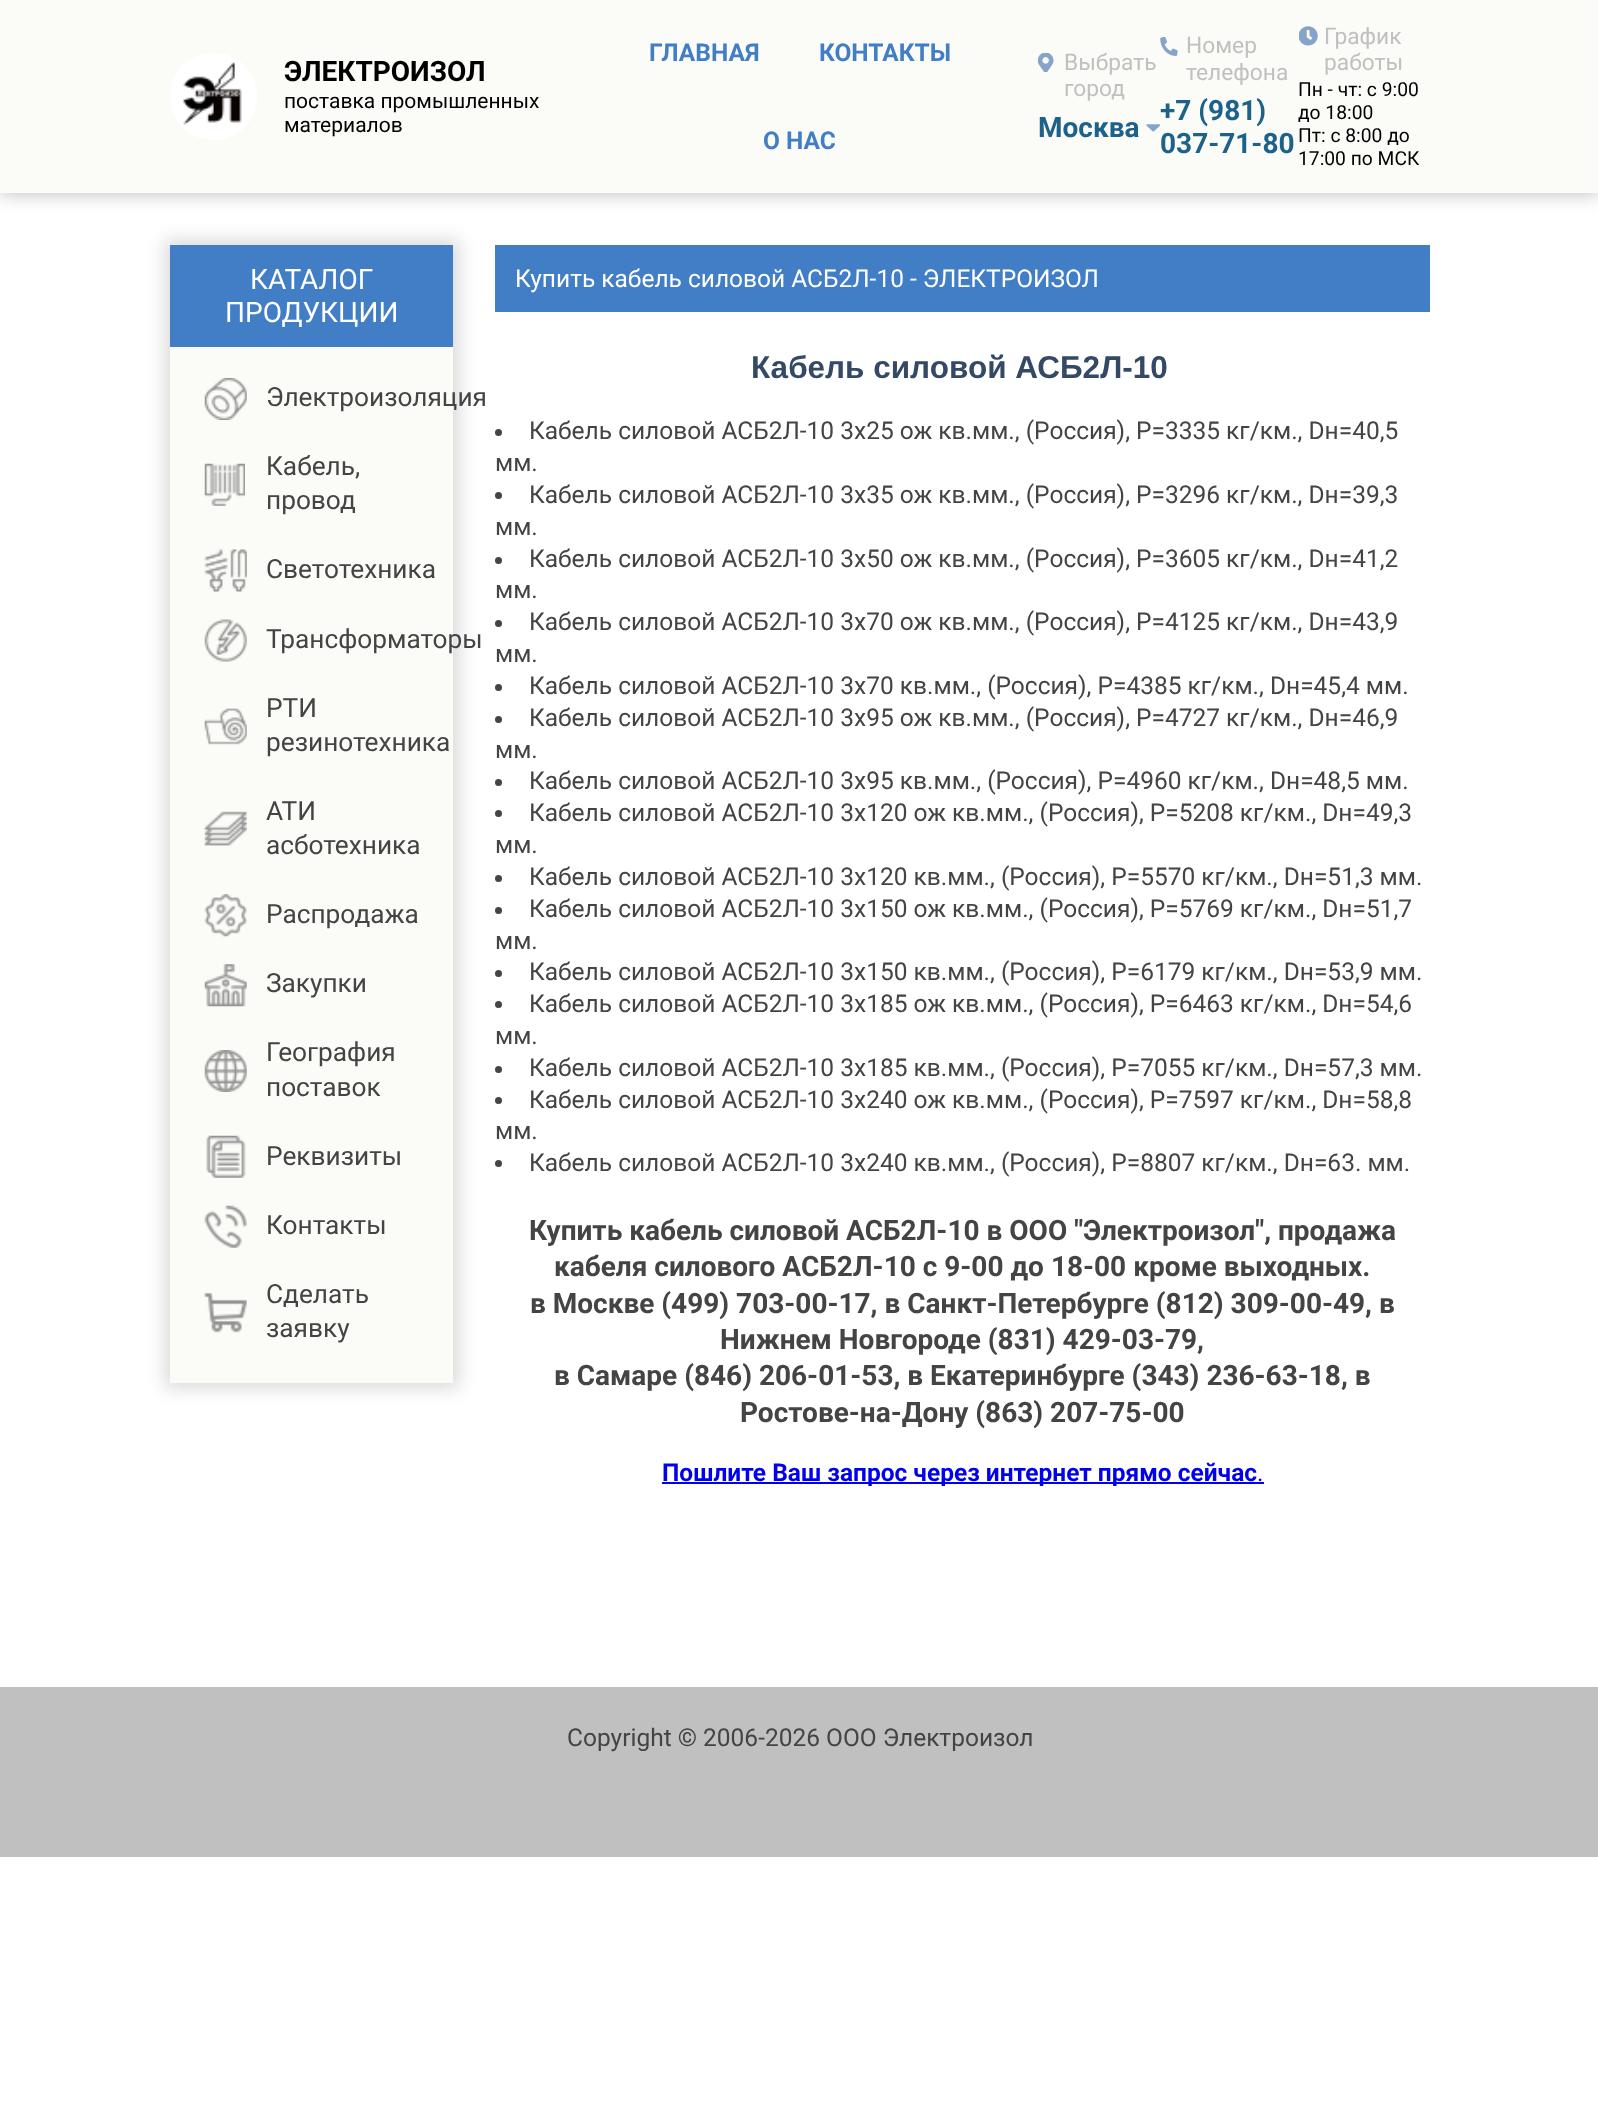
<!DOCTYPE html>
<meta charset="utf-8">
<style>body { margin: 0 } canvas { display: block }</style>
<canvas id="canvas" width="1598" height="2109"></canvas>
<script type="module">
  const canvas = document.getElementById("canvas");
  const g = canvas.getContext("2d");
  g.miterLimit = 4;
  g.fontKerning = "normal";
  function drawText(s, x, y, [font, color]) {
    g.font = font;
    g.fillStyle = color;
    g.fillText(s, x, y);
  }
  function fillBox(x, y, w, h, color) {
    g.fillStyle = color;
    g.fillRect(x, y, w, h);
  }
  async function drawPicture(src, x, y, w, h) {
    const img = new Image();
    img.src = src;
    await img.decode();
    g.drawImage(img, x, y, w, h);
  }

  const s1 = ["bold 28px Roboto", "#000000"];
  const s2 = ["21px Roboto", "#000000"];
  const s3 = ["bold 24.5px Roboto", "#417EC6"];
  const s4 = ["22.75px Roboto", "#C0C0C0"];
  const s5 = ["bold 28px Roboto", "#1D628B"];
  const s6 = ["19.25px Roboto", "#000000"];
  const s7 = ["28px Roboto", "#FFFFFF"];
  const s8 = ["26.25px Roboto", "#444444"];
  const s9 = ["24.5px Roboto", "#FFFFFF"];
  const s10 = ["bold 31.5px Liberation Sans", "#344965"];
  const s11 = ["24.5px Roboto", "#444444"];
  const s12 = ["bold 28px Roboto", "#444444"];
  const s13 = ["bold 24.5px Roboto", "#0000EE"];
  const s14 = ["24.5px Roboto", "#0000EE"];

  fillBox(0, 0, 1598, 2109, "#FFFFFF");
  g.fillStyle = "rgba(0, 0, 0, 0.25)";
  g.filter = "blur(9px)";
  g.beginPath();
  g.rect(0, 2, 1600, 192);
  g.fill();
  g.filter = "none";
  fillBox(0, 0, 1598, 193, "#FBFBF8");
  await drawPicture("pic1.png", 170, 53, 87, 87);
  drawText("ЭЛЕКТРОИЗОЛ", 284, 81, s1);
  drawText("поставка промышленных", 284, 108, s2);
  drawText("материалов", 284, 132, s2);
  drawText("ГЛАВНАЯ", 649, 61, s3);
  drawText("КОНТАКТЫ", 819, 61, s3);
  drawText("О НАС", 763, 149, s3);
  await drawPicture("pic2.png", 1038, 53, 16, 19);
  drawText("Выбрать", 1064, 70, s4);
  drawText("город", 1064, 96, s4);
  drawText("Москва", 1038, 137, s5);
  await drawPicture("pic3.png", 1146, 124, 14, 8);
  await drawPicture("pic4.png", 1160, 37, 18, 19);
  drawText("Номер", 1186, 53, s4);
  drawText("телефона", 1186, 80, s4);
  drawText("+7 (981)", 1160, 120, s5);
  drawText("037-71-80", 1160, 153, s5);
  await drawPicture("pic5.png", 1299, 26, 19, 20);
  drawText("График", 1324, 44, s4);
  drawText("работы", 1324, 70, s4);
  drawText("Пн - чт: с 9:00", 1298, 96, s6);
  drawText("до 18:00", 1298, 119, s6);
  drawText("Пт: с 8:00 до", 1298, 142, s6);
  drawText("17:00 по МСК", 1298, 165, s6);
  g.fillStyle = "rgba(0, 0, 0, 0.15)";
  g.filter = "blur(9px)";
  g.beginPath();
  g.rect(165, 240, 294, 1148);
  g.fill();
  g.filter = "none";
  fillBox(170, 347, 283, 1036, "#FBFBF8");
  fillBox(170, 245, 283, 102, "#417EC6");
  drawText("КАТАЛОГ", 250, 289, s7);
  drawText("ПРОДУКЦИИ", 225, 322, s7);
  await drawPicture("pic6.png", 204, 378, 43, 42);
  drawText("Электроизоляция", 266, 406, s8);
  await drawPicture("pic7.png", 204, 463, 41, 43);
  drawText("Кабель,", 266, 475, s8);
  drawText("провод", 266, 509, s8);
  await drawPicture("pic8.png", 204, 549, 43, 43);
  drawText("Светотехника", 266, 578, s8);
  await drawPicture("pic9.png", 204, 619, 43, 43);
  drawText("Трансформаторы", 266, 648, s8);
  await drawPicture("pic10.png", 204, 708, 43, 37);
  drawText("РТИ", 266, 717, s8);
  drawText("резинотехника", 266, 751, s8);
  await drawPicture("pic11.png", 204, 811, 43, 35);
  drawText("АТИ", 266, 820, s8);
  drawText("асботехника", 266, 854, s8);
  await drawPicture("pic12.png", 204, 894, 43, 43);
  drawText("Распродажа", 266, 923, s8);
  await drawPicture("pic13.png", 204, 964, 43, 43);
  drawText("Закупки", 266, 992, s8);
  await drawPicture("pic14.png", 204, 1050, 43, 42);
  drawText("География", 266, 1061, s8);
  drawText("поставок", 266, 1096, s8);
  await drawPicture("pic15.png", 206, 1135, 40, 43);
  drawText("Реквизиты", 266, 1165, s8);
  await drawPicture("pic16.png", 204, 1205, 43, 43);
  drawText("Контакты", 266, 1234, s8);
  await drawPicture("pic17.png", 204, 1292, 43, 41);
  drawText("Сделать", 266, 1303, s8);
  drawText("заявку", 266, 1337, s8);
  fillBox(495, 245, 935, 67, "#417EC6");
  drawText("Купить кабель силовой АСБ2Л-10 - ЭЛЕКТРОИЗОЛ", 515, 287, s9);
  drawText("Кабель силовой АСБ2Л-10", 751, 378, s10);
  g.fillStyle = "#444444";
  g.beginPath();
  g.arc(498.5, 432.5, 3.5, 0, Math.PI * 2);
  g.fill();
  drawText("Кабель силовой АСБ2Л-10 3х25 ож кв.мм., (Россия), P=3335 кг/км., Dн=40,5", 529, 439, s11);
  drawText("мм.", 495, 471, s11);
  g.beginPath();
  g.arc(498.5, 495.5, 3.5, 0, Math.PI * 2);
  g.fill();
  drawText("Кабель силовой АСБ2Л-10 3х35 ож кв.мм., (Россия), P=3296 кг/км., Dн=39,3", 529, 503, s11);
  drawText("мм.", 495, 535, s11);
  g.beginPath();
  g.arc(498.5, 560.5, 3.5, 0, Math.PI * 2);
  g.fill();
  drawText("Кабель силовой АСБ2Л-10 3х50 ож кв.мм., (Россия), P=3605 кг/км., Dн=41,2", 529, 567, s11);
  drawText("мм.", 495, 598, s11);
  g.beginPath();
  g.arc(498.5, 623.5, 3.5, 0, Math.PI * 2);
  g.fill();
  drawText("Кабель силовой АСБ2Л-10 3х70 ож кв.мм., (Россия), P=4125 кг/км., Dн=43,9", 529, 630, s11);
  drawText("мм.", 495, 662, s11);
  g.beginPath();
  g.arc(498.5, 687.5, 3.5, 0, Math.PI * 2);
  g.fill();
  drawText("Кабель силовой АСБ2Л-10 3х70 кв.мм., (Россия), P=4385 кг/км., Dн=45,4 мм.", 529, 694, s11);
  g.beginPath();
  g.arc(498.5, 719.5, 3.5, 0, Math.PI * 2);
  g.fill();
  drawText("Кабель силовой АСБ2Л-10 3х95 ож кв.мм., (Россия), P=4727 кг/км., Dн=46,9", 529, 726, s11);
  drawText("мм.", 495, 758, s11);
  g.beginPath();
  g.arc(498.5, 782.5, 3.5, 0, Math.PI * 2);
  g.fill();
  drawText("Кабель силовой АСБ2Л-10 3х95 кв.мм., (Россия), P=4960 кг/км., Dн=48,5 мм.", 529, 789, s11);
  g.beginPath();
  g.arc(498.5, 813.5, 3.5, 0, Math.PI * 2);
  g.fill();
  drawText("Кабель силовой АСБ2Л-10 3х120 ож кв.мм., (Россия), P=5208 кг/км., Dн=49,3", 529, 821, s11);
  drawText("мм.", 495, 853, s11);
  g.beginPath();
  g.arc(498.5, 878.5, 3.5, 0, Math.PI * 2);
  g.fill();
  drawText("Кабель силовой АСБ2Л-10 3х120 кв.мм., (Россия), P=5570 кг/км., Dн=51,3 мм.", 529, 885, s11);
  g.beginPath();
  g.arc(498.5, 910.5, 3.5, 0, Math.PI * 2);
  g.fill();
  drawText("Кабель силовой АСБ2Л-10 3х150 ож кв.мм., (Россия), P=5769 кг/км., Dн=51,7", 529, 917, s11);
  drawText("мм.", 495, 949, s11);
  g.beginPath();
  g.arc(498.5, 973.5, 3.5, 0, Math.PI * 2);
  g.fill();
  drawText("Кабель силовой АСБ2Л-10 3х150 кв.мм., (Россия), P=6179 кг/км., Dн=53,9 мм.", 529, 980, s11);
  g.beginPath();
  g.arc(498.5, 1004.5, 3.5, 0, Math.PI * 2);
  g.fill();
  drawText("Кабель силовой АСБ2Л-10 3х185 ож кв.мм., (Россия), P=6463 кг/км., Dн=54,6", 529, 1012, s11);
  drawText("мм.", 495, 1044, s11);
  g.beginPath();
  g.arc(498.5, 1069.5, 3.5, 0, Math.PI * 2);
  g.fill();
  drawText("Кабель силовой АСБ2Л-10 3х185 кв.мм., (Россия), P=7055 кг/км., Dн=57,3 мм.", 529, 1076, s11);
  g.beginPath();
  g.arc(498.5, 1100.5, 3.5, 0, Math.PI * 2);
  g.fill();
  drawText("Кабель силовой АСБ2Л-10 3х240 ож кв.мм., (Россия), P=7597 кг/км., Dн=58,8", 529, 1108, s11);
  drawText("мм.", 495, 1139, s11);
  g.beginPath();
  g.arc(498.5, 1163.5, 3.5, 0, Math.PI * 2);
  g.fill();
  drawText("Кабель силовой АСБ2Л-10 3х240 кв.мм., (Россия), P=8807 кг/км., Dн=63. мм.", 529, 1171, s11);
  drawText("Купить кабель силовой АСБ2Л-10 в ООО \"Электроизол\", продажа", 529, 1240, s12);
  drawText("кабеля силового АСБ2Л-10 с 9-00 до 18-00 кроме выходных.", 554, 1276, s12);
  drawText("в Москве (499) 703-00-17, в Санкт-Петербурге (812) 309-00-49, в", 530, 1313, s12);
  drawText("Нижнем Новгороде (831) 429-03-79,", 720, 1349, s12);
  drawText("в Самаре (846) 206-01-53, в Екатеринбурге (343) 236-63-18, в", 554, 1385, s12);
  drawText("Ростове-на-Дону (863) 207-75-00", 740, 1422, s12);
  fillBox(662, 1482, 602, 2, "#0000EE");
  drawText("Пошлите Ваш запрос через интернет прямо сейчас", 662, 1481, s13);
  drawText(".", 1257, 1481, s14);
  fillBox(0, 1687, 1598, 170, "#C0C0C0");
  drawText("Copyright © 2006-2026 ООО Электроизол", 567, 1746, s11);
</script>
